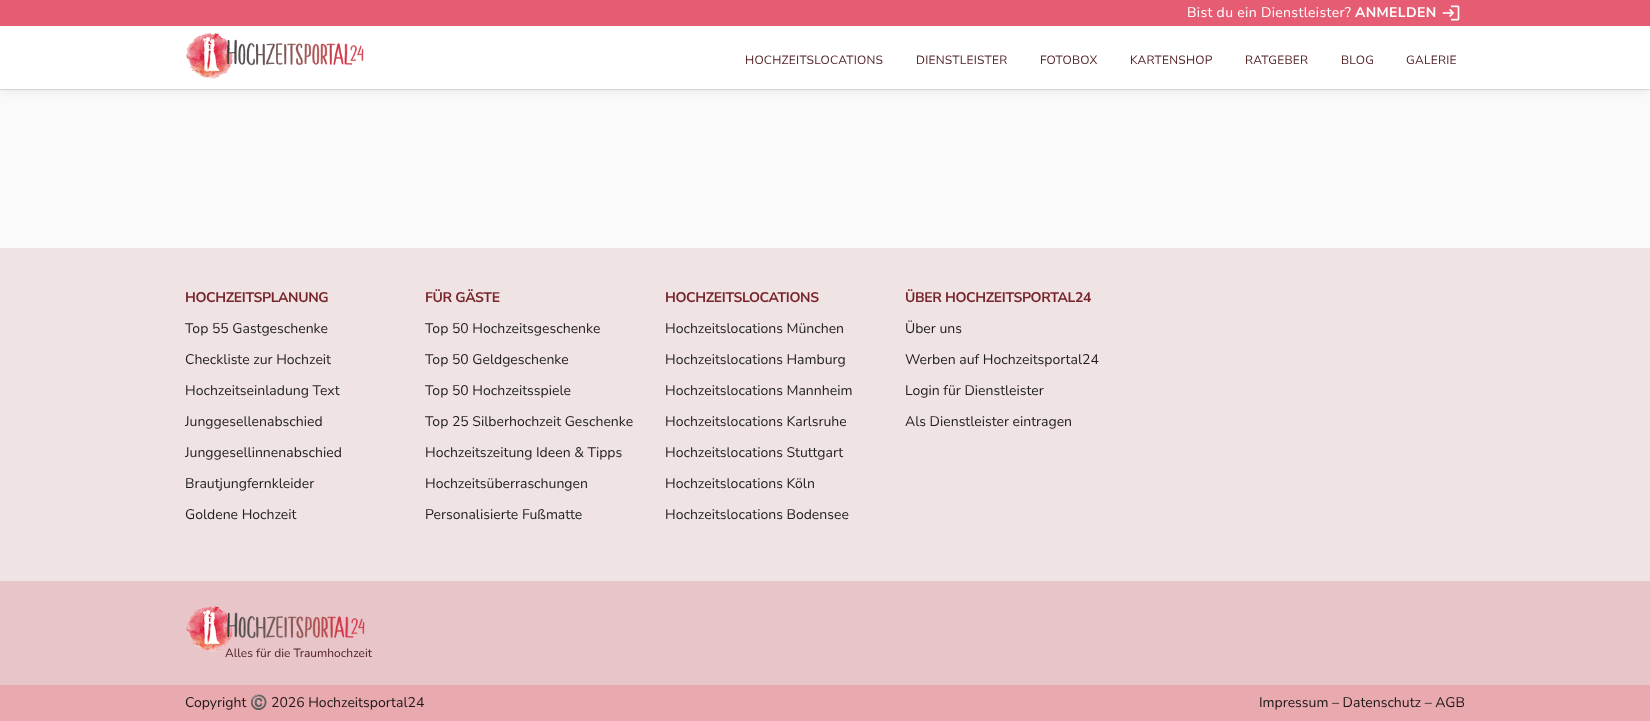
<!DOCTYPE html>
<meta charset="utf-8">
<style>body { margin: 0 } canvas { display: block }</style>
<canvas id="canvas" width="1650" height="721"></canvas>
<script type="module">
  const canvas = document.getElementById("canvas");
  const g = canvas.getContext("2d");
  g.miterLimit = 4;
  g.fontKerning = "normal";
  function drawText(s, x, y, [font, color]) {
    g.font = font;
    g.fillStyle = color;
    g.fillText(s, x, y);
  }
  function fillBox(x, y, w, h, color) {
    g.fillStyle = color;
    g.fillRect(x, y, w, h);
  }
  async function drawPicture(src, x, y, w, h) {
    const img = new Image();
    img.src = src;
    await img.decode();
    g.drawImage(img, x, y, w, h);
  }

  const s1 = ["14px Nunito Sans", "#FFFFFF"];
  const s2 = ["bold 14px Nunito Sans", "#FFFFFF"];
  const s3 = ["12px Nunito Sans", "#4D1B1F"];
  const s4 = ["bold 14px Nunito Sans", "#78262C"];
  const s5 = ["14px Nunito Sans", "#1F1E1E"];
  const s6 = ["14px Nunito Sans", "#1E1617"];
  const s7 = ["14px Noto Color Emoji", "#1E1617"];

  fillBox(0, 0, 1650, 721, "#FAFAFA");
  g.fillStyle = "rgba(0, 0, 0, 0.05)";
  g.filter = "blur(3px)";
  g.beginPath();
  g.rect(1, 31, 1648, 62);
  g.fill();
  g.filter = "none";
  fillBox(0, 0, 1650, 26, "#E65C73");
  g.letterSpacing = "0.35px";
  drawText("Bist du ein Dienstleister?", 1187, 17, s1);
  drawText("ANMELDEN", 1355, 17, s2);
  await drawPicture("pic1.png", 1442, 5, 18, 16);
  fillBox(0, 26, 1650, 63, "#FFFFFF");
  fillBox(0, 89, 1650, 1, "#D1D5DB");
  await drawPicture("pic2.png", 186, 32, 178, 47);
  g.letterSpacing = "0.25px";
  drawText("HOCHZEITSLOCATIONS", 745, 64, s3);
  drawText("DIENSTLEISTER", 916, 64, s3);
  drawText("FOTOBOX", 1040, 64, s3);
  drawText("KARTENSHOP", 1130, 64, s3);
  drawText("RATGEBER", 1245, 64, s3);
  drawText("BLOG", 1341, 64, s3);
  drawText("GALERIE", 1406, 64, s3);
  fillBox(0, 248, 1650, 333, "#F0E3E4");
  g.letterSpacing = "-0.35px";
  drawText("HOCHZEITSPLANUNG", 185, 302, s4);
  g.letterSpacing = "0px";
  drawText("Top 55 Gastgeschenke", 185, 333, s5);
  drawText("Checkliste zur Hochzeit", 185, 364, s5);
  drawText("Hochzeitseinladung Text", 185, 395, s5);
  drawText("Junggesellenabschied", 185, 426, s5);
  drawText("Junggesellinnenabschied", 185, 457, s5);
  drawText("Brautjungfernkleider", 185, 488, s5);
  drawText("Goldene Hochzeit", 185, 519, s5);
  g.letterSpacing = "-0.35px";
  drawText("FÜR GÄSTE", 425, 302, s4);
  g.letterSpacing = "0px";
  drawText("Top 50 Hochzeitsgeschenke", 425, 333, s5);
  drawText("Top 50 Geldgeschenke", 425, 364, s5);
  drawText("Top 50 Hochzeitsspiele", 425, 395, s5);
  drawText("Top 25 Silberhochzeit Geschenke", 425, 426, s5);
  drawText("Hochzeitszeitung Ideen & Tipps", 425, 457, s5);
  drawText("Hochzeitsüberraschungen", 425, 488, s5);
  drawText("Personalisierte Fußmatte", 425, 519, s5);
  g.letterSpacing = "-0.35px";
  drawText("HOCHZEITSLOCATIONS", 665, 302, s4);
  g.letterSpacing = "0px";
  drawText("Hochzeitslocations München", 665, 333, s5);
  drawText("Hochzeitslocations Hamburg", 665, 364, s5);
  drawText("Hochzeitslocations Mannheim", 665, 395, s5);
  drawText("Hochzeitslocations Karlsruhe", 665, 426, s5);
  drawText("Hochzeitslocations Stuttgart", 665, 457, s5);
  drawText("Hochzeitslocations Köln", 665, 488, s5);
  drawText("Hochzeitslocations Bodensee", 665, 519, s5);
  g.letterSpacing = "-0.35px";
  drawText("ÜBER HOCHZEITSPORTAL24", 905, 302, s4);
  g.letterSpacing = "0px";
  drawText("Über uns", 905, 333, s5);
  drawText("Werben auf Hochzeitsportal24", 905, 364, s5);
  drawText("Login für Dienstleister", 905, 395, s5);
  drawText("Als Dienstleister eintragen", 905, 426, s5);
  fillBox(0, 581, 1650, 104, "#E7C5C8");
  await drawPicture("pic3.png", 186, 606, 179, 46);
  drawText("Alles für die Traumhochzeit", 225, 657, s3);
  fillBox(0, 685, 1650, 36, "#E9AAAF");
  drawText("Copyright", 185, 707, s6);
  drawText("©️", 250, 707, s7);
  drawText("2026 Hochzeitsportal24", 271, 707, s6);
  drawText("Impressum – Datenschutz – AGB", 1259, 707, s6);
</script>
